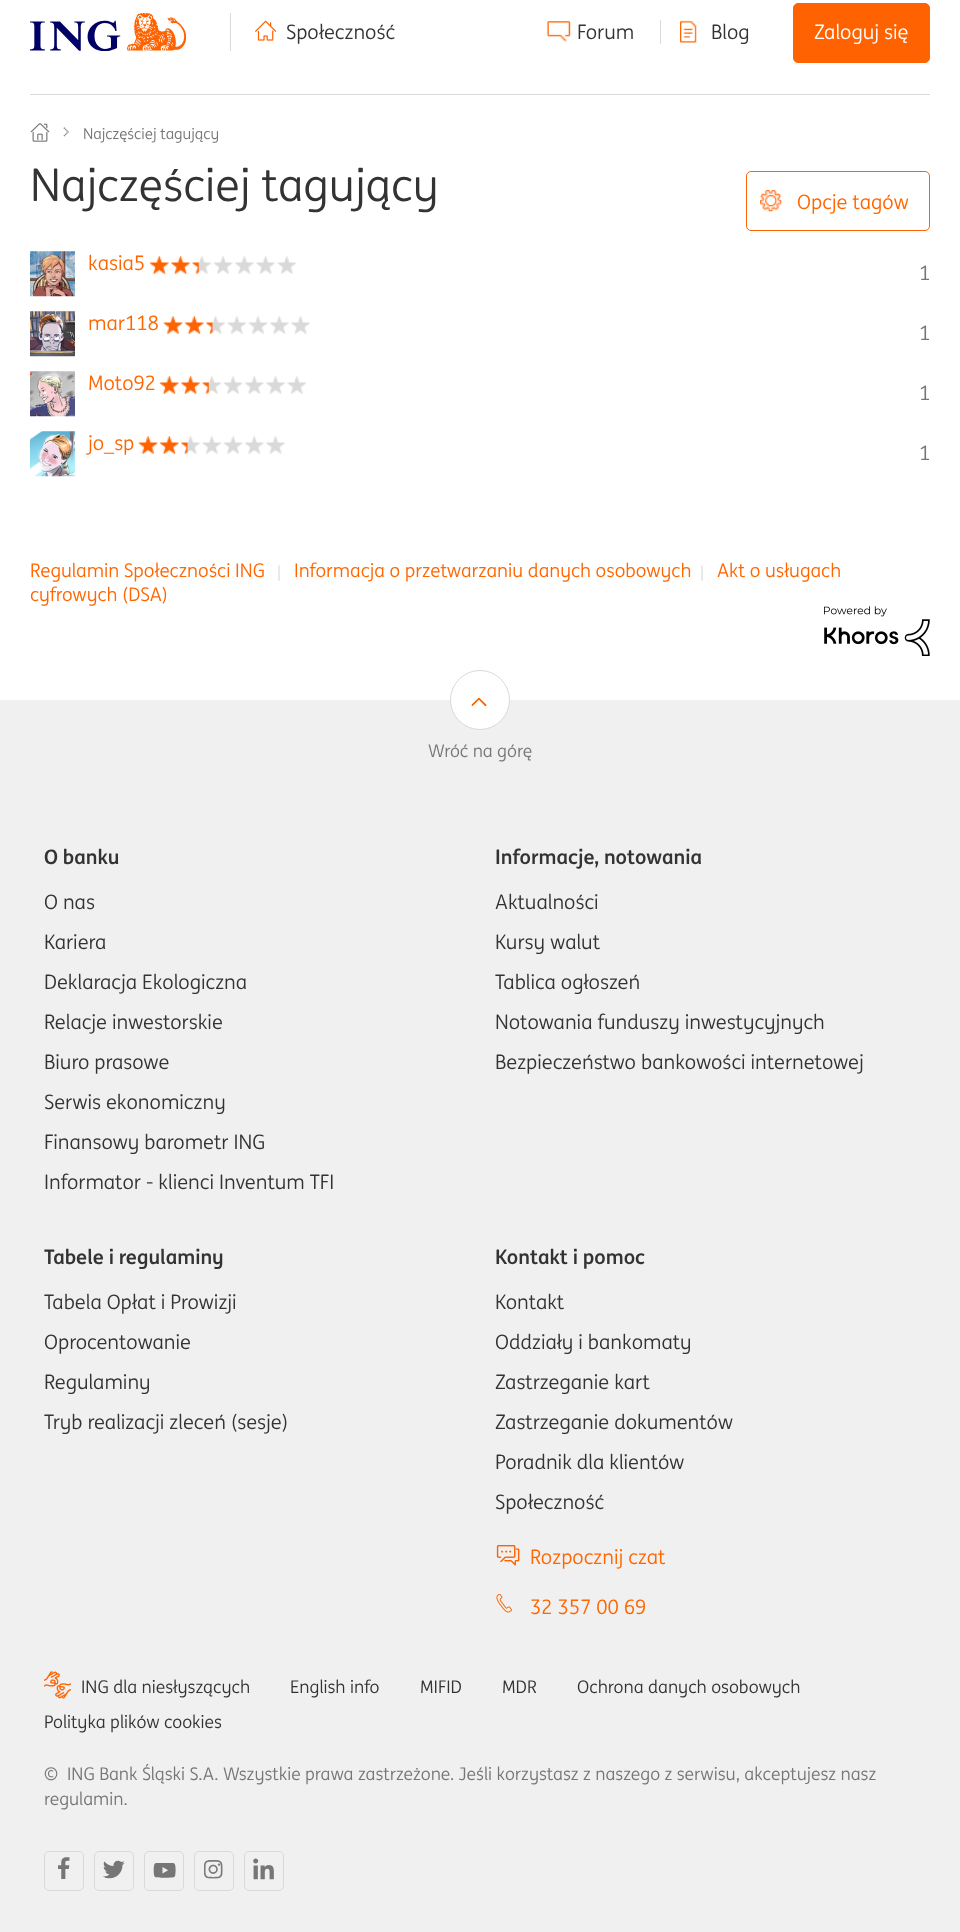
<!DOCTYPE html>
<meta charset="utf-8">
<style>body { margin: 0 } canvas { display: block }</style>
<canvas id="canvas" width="960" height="1932"></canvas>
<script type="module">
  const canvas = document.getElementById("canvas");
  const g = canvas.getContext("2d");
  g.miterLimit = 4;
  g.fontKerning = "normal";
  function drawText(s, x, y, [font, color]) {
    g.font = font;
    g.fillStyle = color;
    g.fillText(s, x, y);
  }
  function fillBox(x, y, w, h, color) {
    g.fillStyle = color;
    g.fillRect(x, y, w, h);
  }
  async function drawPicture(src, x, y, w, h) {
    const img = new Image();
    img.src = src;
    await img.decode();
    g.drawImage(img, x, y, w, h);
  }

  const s1 = ["20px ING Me", "#333333"];
  const s2 = ["20px ING Me", "#FFFFFF"];
  const s3 = ["15px ING Me", "#767676"];
  const s4 = ["45px ING Me", "#333333"];
  const s5 = ["20px ING Me", "#FF6600"];
  const s6 = ["20px ING Me", "#767676"];
  const s7 = ["18.75px ING Me", "#FF6600"];
  const s8 = ["15px ING Me", "#D9D9D9"];
  const s9 = ["17.5px ING Me", "#767676"];
  const s10 = ["bold 20px ING Me", "#333333"];
  const s11 = ["17.5px ING Me", "#333333"];

  fillBox(0, 0, 960, 1932, "#FFFFFF");
  fillBox(30, 94, 900, 1, "#D9D9D9");
  fillBox(230, 13, 1, 38, "#D9D9D9");
  await drawPicture("pic1.png", 30, 13, 156, 38);
  await drawPicture("pic2.png", 255, 20, 21, 21);
  drawText("Społeczność", 286, 39, s1);
  fillBox(660, 20, 1, 24, "#D9D9D9");
  await drawPicture("pic3.png", 546, 21, 25, 21);
  drawText("Forum", 577, 39, s1);
  await drawPicture("pic4.png", 680, 20, 17, 23);
  drawText("Blog", 711, 39, s1);
  g.fillStyle = "#FF6200";
  g.beginPath();
  g.roundRect(793.5, 3.5, 136, 59, 4.5);
  g.fill();
  g.strokeStyle = "#FF6200";
  g.stroke();
  drawText("Zaloguj się", 814, 39, s2);
  await drawPicture("pic5.png", 30, 123, 20, 19);
  await drawPicture("pic6.png", 63, 127, 6, 10);
  drawText("Najczęściej tagujący", 83, 139, s3);
  drawText("Najczęściej tagujący", 30, 201, s4);
  await drawPicture("pic7.png", 760, 190, 22, 22);
  g.beginPath();
  g.roundRect(746.5, 171.5, 183, 59, 4.5);
  g.stroke();
  drawText("Opcje tagów", 797, 209, s5);
  await drawPicture("pic8.png", 30, 251, 45, 46);
  drawText("kasia5", 88, 270, s5);
  await drawPicture("pic9.png", 150, 256, 146, 18);
  drawText("1", 919, 280, s6);
  await drawPicture("pic10.png", 30, 311, 45, 46);
  drawText("mar118", 88, 330, s5);
  await drawPicture("pic11.png", 163, 316, 147, 18);
  drawText("1", 919, 340, s6);
  await drawPicture("pic12.png", 30, 371, 45, 46);
  drawText("Moto92", 88, 390, s5);
  await drawPicture("pic13.png", 160, 376, 146, 18);
  drawText("1", 919, 400, s6);
  await drawPicture("pic14.png", 30, 431, 45, 46);
  drawText("jo_sp", 88, 450, s5);
  await drawPicture("pic15.png", 138, 436, 147, 18);
  drawText("1", 919, 460, s6);
  drawText("Regulamin Społeczności ING", 30, 577, s7);
  drawText("|", 277, 577, s8);
  drawText("Informacja o przetwarzaniu danych osobowych", 294, 577, s7);
  drawText("|", 700, 577, s8);
  drawText("Akt o usługach", 717, 577, s7);
  drawText("cyfrowych (DSA)", 30, 601, s7);
  await drawPicture("pic16.png", 824, 606, 106, 50);
  fillBox(0, 700, 960, 1232, "#F0F0F0");
  g.fillStyle = "#FFFFFF";
  g.beginPath();
  g.arc(480, 700, 29.5, 0, Math.PI * 2);
  g.fill();
  g.strokeStyle = "#D9D9D9";
  g.stroke();
  await drawPicture("pic17.png", 471, 698, 16, 8);
  drawText("Wróć na górę", 428, 757, s9);
  drawText("O banku", 44, 864, s10);
  drawText("O nas", 44, 909, s1);
  drawText("Kariera", 44, 949, s1);
  drawText("Deklaracja Ekologiczna", 44, 989, s1);
  drawText("Relacje inwestorskie", 44, 1029, s1);
  drawText("Biuro prasowe", 44, 1069, s1);
  drawText("Serwis ekonomiczny", 44, 1109, s1);
  drawText("Finansowy barometr ING", 44, 1149, s1);
  drawText("Informator - klienci Inventum TFI", 44, 1189, s1);
  drawText("Informacje, notowania", 495, 864, s10);
  drawText("Aktualności", 495, 909, s1);
  drawText("Kursy walut", 495, 949, s1);
  drawText("Tablica ogłoszeń", 495, 989, s1);
  drawText("Notowania funduszy inwestycyjnych", 495, 1029, s1);
  drawText("Bezpieczeństwo bankowości internetowej", 495, 1069, s1);
  drawText("Tabele i regulaminy", 44, 1264, s10);
  drawText("Tabela Opłat i Prowizji", 44, 1309, s1);
  drawText("Oprocentowanie", 44, 1349, s1);
  drawText("Regulaminy", 44, 1389, s1);
  drawText("Tryb realizacji zleceń (sesje)", 44, 1429, s1);
  drawText("Kontakt i pomoc", 495, 1264, s10);
  drawText("Kontakt", 495, 1309, s1);
  drawText("Oddziały i bankomaty", 495, 1349, s1);
  drawText("Zastrzeganie kart", 495, 1389, s1);
  drawText("Zastrzeganie dokumentów", 495, 1429, s1);
  drawText("Poradnik dla klientów", 495, 1469, s1);
  drawText("Społeczność", 495, 1509, s1);
  await drawPicture("pic18.png", 496, 1545, 24, 21);
  drawText("Rozpocznij czat", 530, 1564, s5);
  await drawPicture("pic19.png", 496, 1594, 16, 19);
  drawText("32 357 00 69", 530, 1614, s5);
  await drawPicture("pic20.png", 44, 1671, 27, 28);
  drawText("ING dla niesłyszących", 81, 1693, s11);
  drawText("English info", 290, 1693, s11);
  drawText("MIFID", 420, 1693, s11);
  drawText("MDR", 502, 1693, s11);
  drawText("Ochrona danych osobowych", 577, 1693, s11);
  drawText("Polityka plików cookies", 44, 1728, s11);
  drawText("©", 44, 1780, s9);
  drawText("ING Bank Śląski S.A. Wszystkie prawa zastrzeżone. Jeśli korzystasz z naszego z serwisu, akceptujesz nasz", 67, 1780, s9);
  drawText("regulamin.", 44, 1805, s9);
  g.beginPath();
  g.roundRect(44.5, 1851.5, 39, 39, 4.5);
  g.stroke();
  await drawPicture("pic21.png", 58, 1857, 12, 22);
  g.beginPath();
  g.roundRect(94.5, 1851.5, 39, 39, 4.5);
  g.stroke();
  await drawPicture("pic22.png", 103, 1860, 22, 19);
  g.beginPath();
  g.roundRect(144.5, 1851.5, 39, 39, 4.5);
  g.stroke();
  await drawPicture("pic23.png", 153, 1863, 23, 15);
  g.beginPath();
  g.roundRect(194.5, 1851.5, 39, 39, 4.5);
  g.stroke();
  await drawPicture("pic24.png", 204, 1860, 19, 19);
  g.beginPath();
  g.roundRect(244.5, 1851.5, 39, 39, 4.5);
  g.stroke();
  await drawPicture("pic25.png", 253, 1858, 21, 22);
</script>
